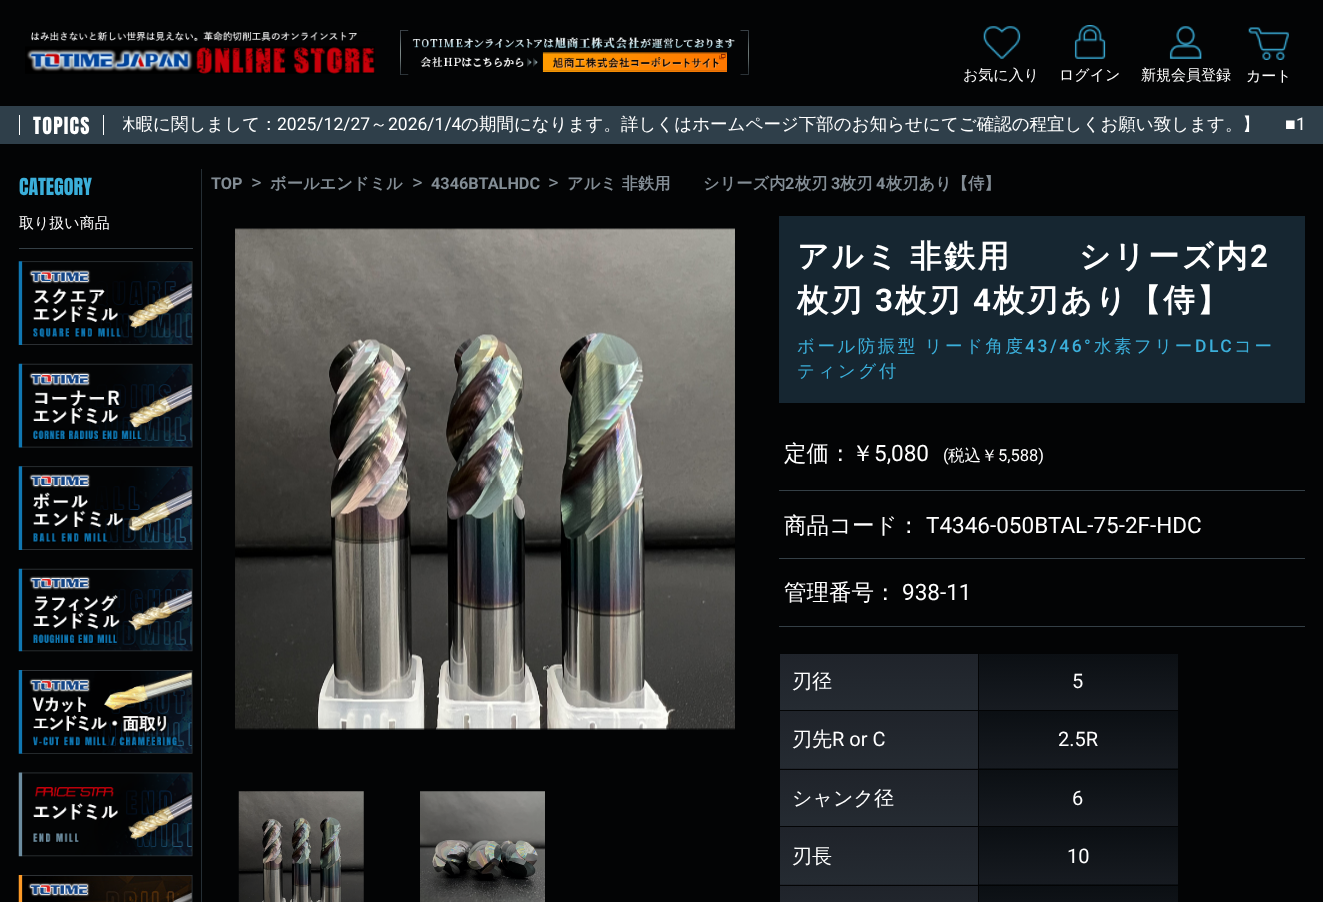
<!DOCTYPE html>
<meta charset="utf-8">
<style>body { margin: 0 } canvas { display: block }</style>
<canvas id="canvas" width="1323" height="902"></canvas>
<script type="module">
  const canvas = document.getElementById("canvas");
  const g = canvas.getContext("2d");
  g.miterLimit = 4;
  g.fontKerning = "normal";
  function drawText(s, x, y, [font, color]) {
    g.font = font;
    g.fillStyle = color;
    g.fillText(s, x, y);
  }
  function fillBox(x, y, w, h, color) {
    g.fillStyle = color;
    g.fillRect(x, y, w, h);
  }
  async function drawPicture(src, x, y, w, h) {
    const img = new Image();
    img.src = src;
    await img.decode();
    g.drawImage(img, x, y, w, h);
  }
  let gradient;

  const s1 = ["500 15px WenQuanYi Zen Hei", "#FFFFFF"];
  const s2 = ["20px Anton", "#FFFFFF"];
  const s3 = ["500 17.5px WenQuanYi Zen Hei", "#FFFFFF"];
  const s4 = ["17.5px Roboto", "#FFFFFF"];
  const s5 = ["17.5px Liberation Sans", "#FFFFFF"];
  const s6 = ["20px Anton", "#3BAFDA"];
  const s7 = ["bold 16.25px Roboto", "#838D95"];
  const s8 = ["20px Roboto", "#838D95"];
  const s9 = ["bold 16.25px WenQuanYi Zen Hei", "#838D95"];
  const s10 = ["bold 31.25px WenQuanYi Zen Hei", "#FFFFFF"];
  const s11 = ["bold 31.25px Roboto", "#FFFFFF"];
  const s12 = ["500 17.5px WenQuanYi Zen Hei", "#3BAFDA"];
  const s13 = ["500 17.5px Roboto", "#3BAFDA"];
  const s14 = ["500 22.5px WenQuanYi Zen Hei", "#FFFFFF"];
  const s15 = ["22.5px Roboto", "#FFFFFF"];
  const s16 = ["16.5px Roboto", "#FFFFFF"];
  const s17 = ["500 16.5px WenQuanYi Zen Hei", "#FFFFFF"];
  const s18 = ["500 20px WenQuanYi Zen Hei", "#FFFFFF"];
  const s19 = ["20px Roboto", "#FFFFFF"];

  fillBox(0, 0, 1323, 902, "#030405");
  await drawPicture("pic1.png", 25, 31, 350, 43);
  await drawPicture("pic2.png", 400, 30, 349, 45);
  await drawPicture("pic3.png", 983, 26, 38, 33);
  drawText("お気に入り", 963, 80, s1);
  await drawPicture("pic4.png", 1074, 25, 32, 34);
  drawText("ログイン", 1059, 80, s1);
  await drawPicture("pic5.png", 1169, 26, 33, 33);
  drawText("新規会員登録", 1141, 80, s1);
  await drawPicture("pic6.png", 1248, 27, 41, 33);
  drawText("カート", 1246, 81, s1);
  fillBox(0, 106, 1323, 38, "#2F3F4A");
  fillBox(103, 115, 1, 20, "#FFFFFF");
  fillBox(19, 115, 1, 20, "#FFFFFF");
  g.letterSpacing = "1.25px";
  drawText("TOPICS", 33, 134, s2);
  g.save();
  g.beginPath();
  g.rect(123, 113, 1137, 25);
  g.clip();
  g.letterSpacing = "0px";
  drawText("休暇に関しまして：", 118, 130, s3);
  g.restore();
  g.letterSpacing = "0px";
  drawText("2025/12/27", 277, 130, s4);
  drawText("～", 370, 130, s3);
  drawText("2026/1/4", 388, 130, s4);
  drawText("の期間になります。詳しくはホームページ下部のお知らせにてご確認の程宜しくお願い致します。】", 461, 130, s3);
  drawText("■", 1285, 130, s5);
  drawText("1", 1296, 130, s4);
  fillBox(19, 248, 174, 1, "#343F46");
  drawText("CATEGORY", 19, 195, s6);
  drawText("取り扱い商品", 19, 228, s1);
  await drawPicture("pic7.png", 18, 261, 175, 84);
  await drawPicture("pic8.png", 18, 363, 175, 85);
  await drawPicture("pic9.png", 18, 466, 175, 84);
  await drawPicture("pic10.png", 18, 568, 175, 84);
  await drawPicture("pic11.png", 18, 670, 175, 84);
  await drawPicture("pic12.png", 18, 772, 175, 85);
  await drawPicture("pic13.png", 18, 875, 175, 27);
  fillBox(201, 169, 1, 733, "#252E34");
  drawText("TOP", 211, 189, s7);
  drawText(">", 251, 189, s8);
  drawText("ボールエンドミル", 270, 189, s9);
  drawText(">", 412, 189, s8);
  drawText("4346BTALHDC", 431, 189, s7);
  drawText(">", 548, 189, s8);
  drawText("アルミ 非鉄用　　シリーズ内", 567, 189, s9);
  drawText("2", 785, 189, s7);
  drawText("枚刃", 795, 189, s9);
  drawText("3", 831, 189, s7);
  drawText("枚刃", 840, 189, s9);
  drawText("4", 876, 189, s7);
  drawText("枚刃あり【侍】", 886, 189, s9);
  await drawPicture("pic14.png", 235, 228, 500, 502);
  await drawPicture("pic15.png", 238, 791, 126, 111);
  await drawPicture("pic16.png", 420, 791, 125, 111);
  fillBox(779, 216, 526, 187, "#162631");
  g.letterSpacing = "2.5px";
  g.wordSpacing = "-2px";
  drawText("アルミ 非鉄用　　シリーズ内", 797, 267, s10);
  g.wordSpacing = "0px";
  drawText("2", 1250, 267, s11);
  drawText("枚刃", 797, 311, s10);
  drawText("3", 875, 311, s11);
  drawText("枚刃", 895, 311, s10);
  drawText("4", 973, 311, s11);
  drawText("枚刃あり【侍】", 993, 311, s10);
  g.wordSpacing = "-1px";
  drawText("ボール防振型 リード角度", 797, 352, s12);
  g.wordSpacing = "0px";
  drawText("43/46°", 1025, 352, s13);
  drawText("水素フリー", 1094, 352, s12);
  drawText("DLC", 1195, 352, s13);
  drawText("コー", 1234, 352, s12);
  drawText("ティング付", 797, 377, s12);
  fillBox(779, 490, 526, 1, "#343F46");
  g.letterSpacing = "0px";
  drawText("定価：￥", 784, 461, s14);
  drawText("5,080", 874, 461, s15);
  drawText("(", 943, 461, s16);
  drawText("税込￥", 948, 461, s17);
  drawText("5,588)", 998, 461, s16);
  fillBox(779, 558, 526, 1, "#343F46");
  drawText("商品コード：", 784, 533, s14);
  drawText("T4346-050BTAL-75-2F-HDC", 926, 533, s15);
  fillBox(779, 626, 526, 1, "#343F46");
  drawText("管理番号：", 784, 600, s14);
  drawText("938-11", 902, 600, s15);
  gradient = g.createLinearGradient(878, 768, 878, 824);
  gradient.addColorStop(0, "#1F232A");
  gradient.addColorStop(1, "#252B32");
  g.fillStyle = gradient;
  g.fillRect(779, 768, 200, 1);
  gradient = g.createLinearGradient(878, 826, 878, 884);
  gradient.addColorStop(0, "#1F232A");
  gradient.addColorStop(1, "#252B32");
  g.fillStyle = gradient;
  g.fillRect(779, 827, 200, 1);
  gradient = g.createLinearGradient(878, 884, 878, 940);
  gradient.addColorStop(0, "#1F232A");
  gradient.addColorStop(1, "#252B32");
  g.fillStyle = gradient;
  g.fillRect(779, 884, 200, 1);
  fillBox(779, 768, 1, 117, "#030405");
  gradient = g.createLinearGradient(878, 653, 878, 710);
  gradient.addColorStop(0, "#1F232A");
  gradient.addColorStop(1, "#252B32");
  g.fillStyle = gradient;
  g.fillRect(780, 654, 198, 56);
  drawText("刃径", 792, 688, s18);
  gradient = g.createLinearGradient(1078, 653, 1078, 710);
  gradient.addColorStop(0, "#0B0F13");
  gradient.addColorStop(1, "#171B21");
  g.fillStyle = gradient;
  g.fillRect(979, 654, 199, 56);
  drawText("5", 1072, 688, s19);
  gradient = g.createLinearGradient(878, 711, 878, 768);
  gradient.addColorStop(0, "#1F232A");
  gradient.addColorStop(1, "#252B32");
  g.fillStyle = gradient;
  g.fillRect(780, 711, 198, 57);
  fillBox(978, 768, 1, 2, "#030405");
  drawText("刃先", 792, 746, s18);
  drawText("R or C", 832, 746, s19);
  gradient = g.createLinearGradient(1078, 711, 1078, 768);
  gradient.addColorStop(0, "#0B0F13");
  gradient.addColorStop(1, "#171B21");
  g.fillStyle = gradient;
  g.fillRect(979, 711, 199, 57);
  gradient = g.createLinearGradient(1078, 768, 1078, 824);
  gradient.addColorStop(0, "#0B0F13");
  gradient.addColorStop(1, "#171B21");
  g.fillStyle = gradient;
  g.fillRect(979, 768, 199, 1);
  drawText("2.5R", 1058, 746, s19);
  gradient = g.createLinearGradient(878, 769, 878, 826);
  gradient.addColorStop(0, "#1F232A");
  gradient.addColorStop(1, "#252B32");
  g.fillStyle = gradient;
  g.fillRect(780, 770, 198, 56);
  drawText("シャンク径", 792, 805, s18);
  gradient = g.createLinearGradient(1078, 769, 1078, 826);
  gradient.addColorStop(0, "#0B0F13");
  gradient.addColorStop(1, "#171B21");
  g.fillStyle = gradient;
  g.fillRect(979, 770, 199, 56);
  gradient = g.createLinearGradient(1078, 826, 1078, 884);
  gradient.addColorStop(0, "#0B0F13");
  gradient.addColorStop(1, "#171B21");
  g.fillStyle = gradient;
  g.fillRect(979, 827, 199, 1);
  drawText("6", 1072, 805, s19);
  gradient = g.createLinearGradient(878, 828, 878, 884);
  gradient.addColorStop(0, "#1F232A");
  gradient.addColorStop(1, "#252B32");
  g.fillStyle = gradient;
  g.fillRect(780, 828, 198, 56);
  fillBox(978, 826, 1, 60, "#030405");
  drawText("刃長", 792, 863, s18);
  gradient = g.createLinearGradient(1078, 828, 1078, 884);
  gradient.addColorStop(0, "#0B0F13");
  gradient.addColorStop(1, "#171B21");
  g.fillStyle = gradient;
  g.fillRect(979, 828, 199, 56);
  gradient = g.createLinearGradient(1078, 884, 1078, 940);
  gradient.addColorStop(0, "#0B0F13");
  gradient.addColorStop(1, "#171B21");
  g.fillStyle = gradient;
  g.fillRect(979, 884, 199, 1);
  drawText("10", 1067, 863, s19);
  gradient = g.createLinearGradient(878, 885, 878, 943);
  gradient.addColorStop(0, "#1F232A");
  gradient.addColorStop(1, "#252B32");
  g.fillStyle = gradient;
  g.fillRect(780, 886, 198, 16);
  gradient = g.createLinearGradient(1078, 885, 1078, 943);
  gradient.addColorStop(0, "#0B0F13");
  gradient.addColorStop(1, "#171B21");
  g.fillStyle = gradient;
  g.fillRect(979, 886, 199, 16);
</script>
